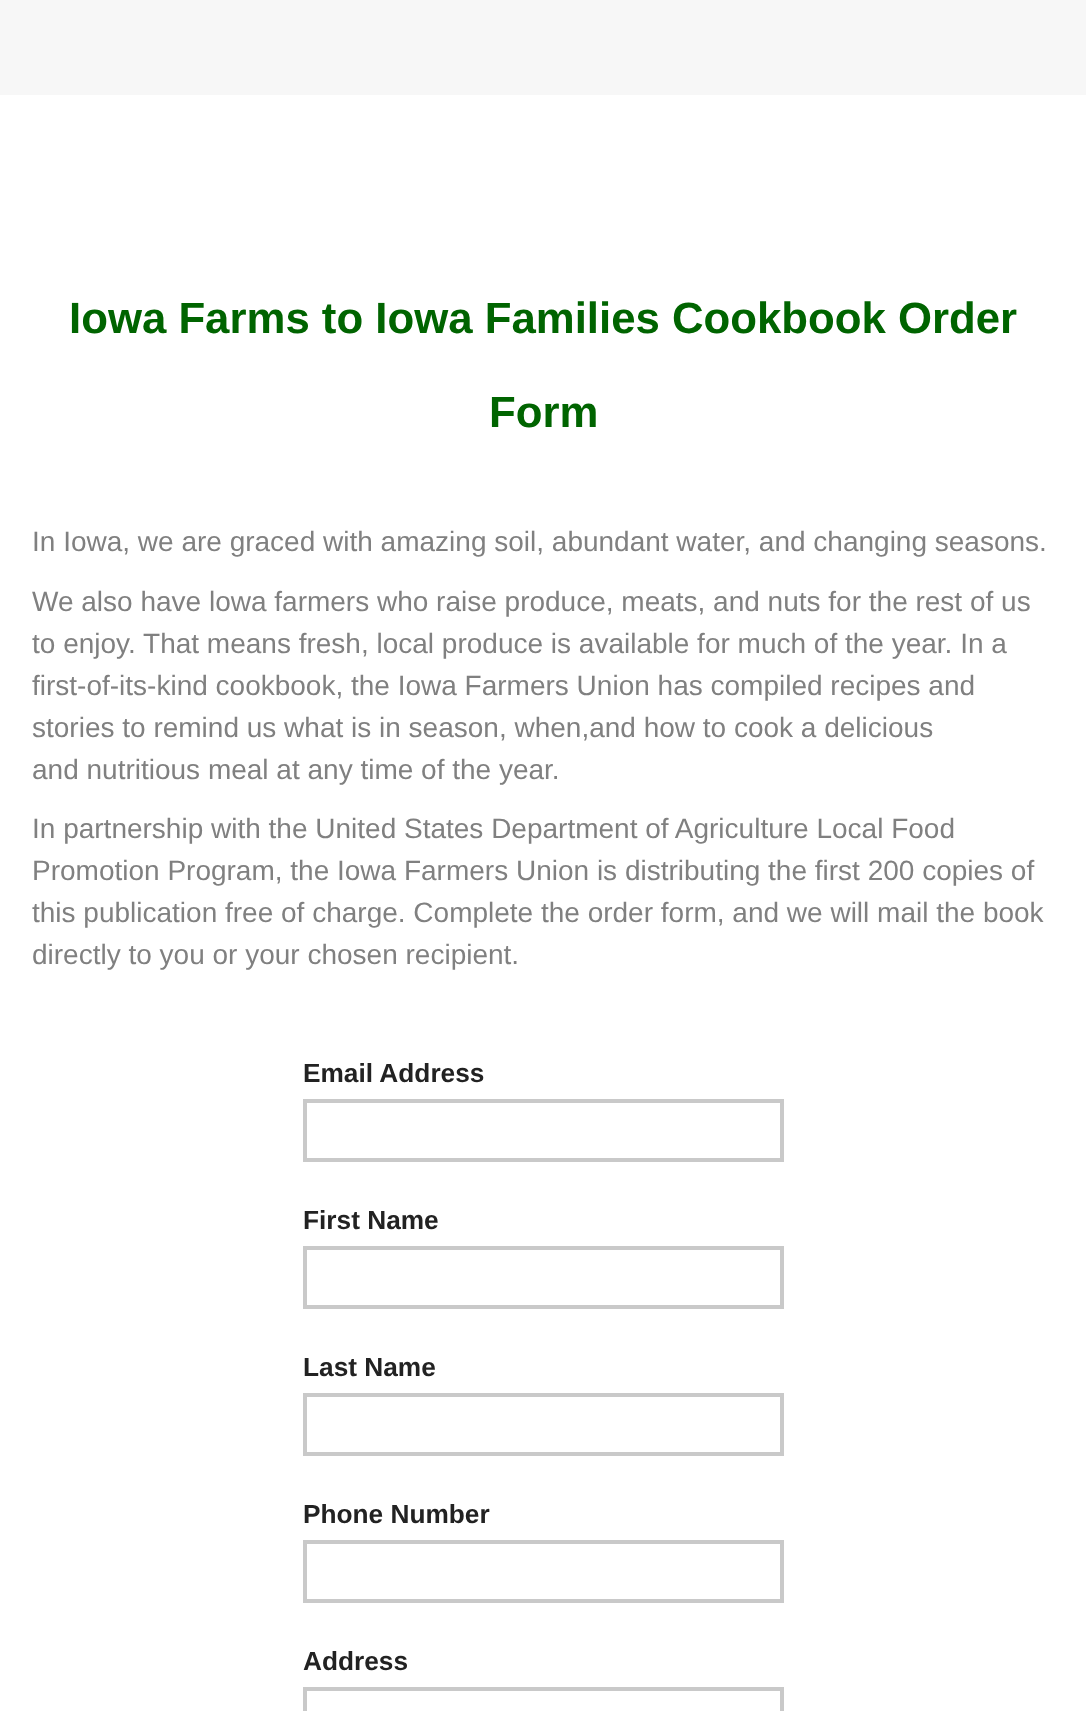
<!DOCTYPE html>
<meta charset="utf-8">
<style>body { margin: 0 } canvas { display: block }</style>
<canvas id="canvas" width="1086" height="1711"></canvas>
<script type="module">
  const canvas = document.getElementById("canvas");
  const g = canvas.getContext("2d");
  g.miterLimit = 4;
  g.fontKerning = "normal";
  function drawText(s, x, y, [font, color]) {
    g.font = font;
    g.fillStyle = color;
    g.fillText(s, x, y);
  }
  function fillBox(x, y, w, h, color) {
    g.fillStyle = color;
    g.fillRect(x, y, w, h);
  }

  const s1 = ["bold 43.75px Liberation Sans", "#006400"];
  const s2 = ["28px Liberation Sans", "#808080"];
  const s3 = ["bold 26.25px Liberation Sans", "#222222"];

  fillBox(0, 0, 1086, 1711, "#F7F7F7");
  fillBox(0, 95, 1086, 1616, "#FFFFFF");
  drawText("Iowa Farms to Iowa Families Cookbook Order", 69, 333, s1);
  drawText("Form", 489, 427, s1);
  drawText("In Iowa, we are graced with amazing soil, abundant water, and changing seasons.", 32, 551, s2);
  drawText("We also have lowa farmers who raise produce, meats, and nuts for the rest of us", 32, 611, s2);
  drawText("to enjoy. That means fresh, local produce is available for much of the year. In a", 32, 653, s2);
  drawText("first-of-its-kind cookbook, the Iowa Farmers Union has compiled recipes and", 32, 695, s2);
  drawText("stories to remind us what is in season, when,and how to cook a delicious", 32, 737, s2);
  drawText("and nutritious meal at any time of the year.", 32, 779, s2);
  drawText("In partnership with the United States Department of Agriculture Local Food", 32, 838, s2);
  drawText("Promotion Program, the Iowa Farmers Union is distributing the first 200 copies of", 32, 880, s2);
  drawText("this publication free of charge. Complete the order form, and we will mail the book", 32, 922, s2);
  drawText("directly to you or your chosen recipient.", 32, 964, s2);
  drawText("Email Address", 303, 1082, s3);
  g.beginPath();
  g.rect(305, 1101, 477, 59);
  g.strokeStyle = "#C9C9C9";
  g.lineWidth = 4;
  g.stroke();
  drawText("First Name", 303, 1229, s3);
  g.beginPath();
  g.rect(305, 1248, 477, 59);
  g.stroke();
  drawText("Last Name", 303, 1376, s3);
  g.beginPath();
  g.rect(305, 1395, 477, 59);
  g.stroke();
  drawText("Phone Number", 303, 1523, s3);
  g.beginPath();
  g.rect(305, 1542, 477, 59);
  g.stroke();
  drawText("Address", 303, 1670, s3);
  g.beginPath();
  g.rect(305, 1689, 477, 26);
  g.stroke();
</script>
